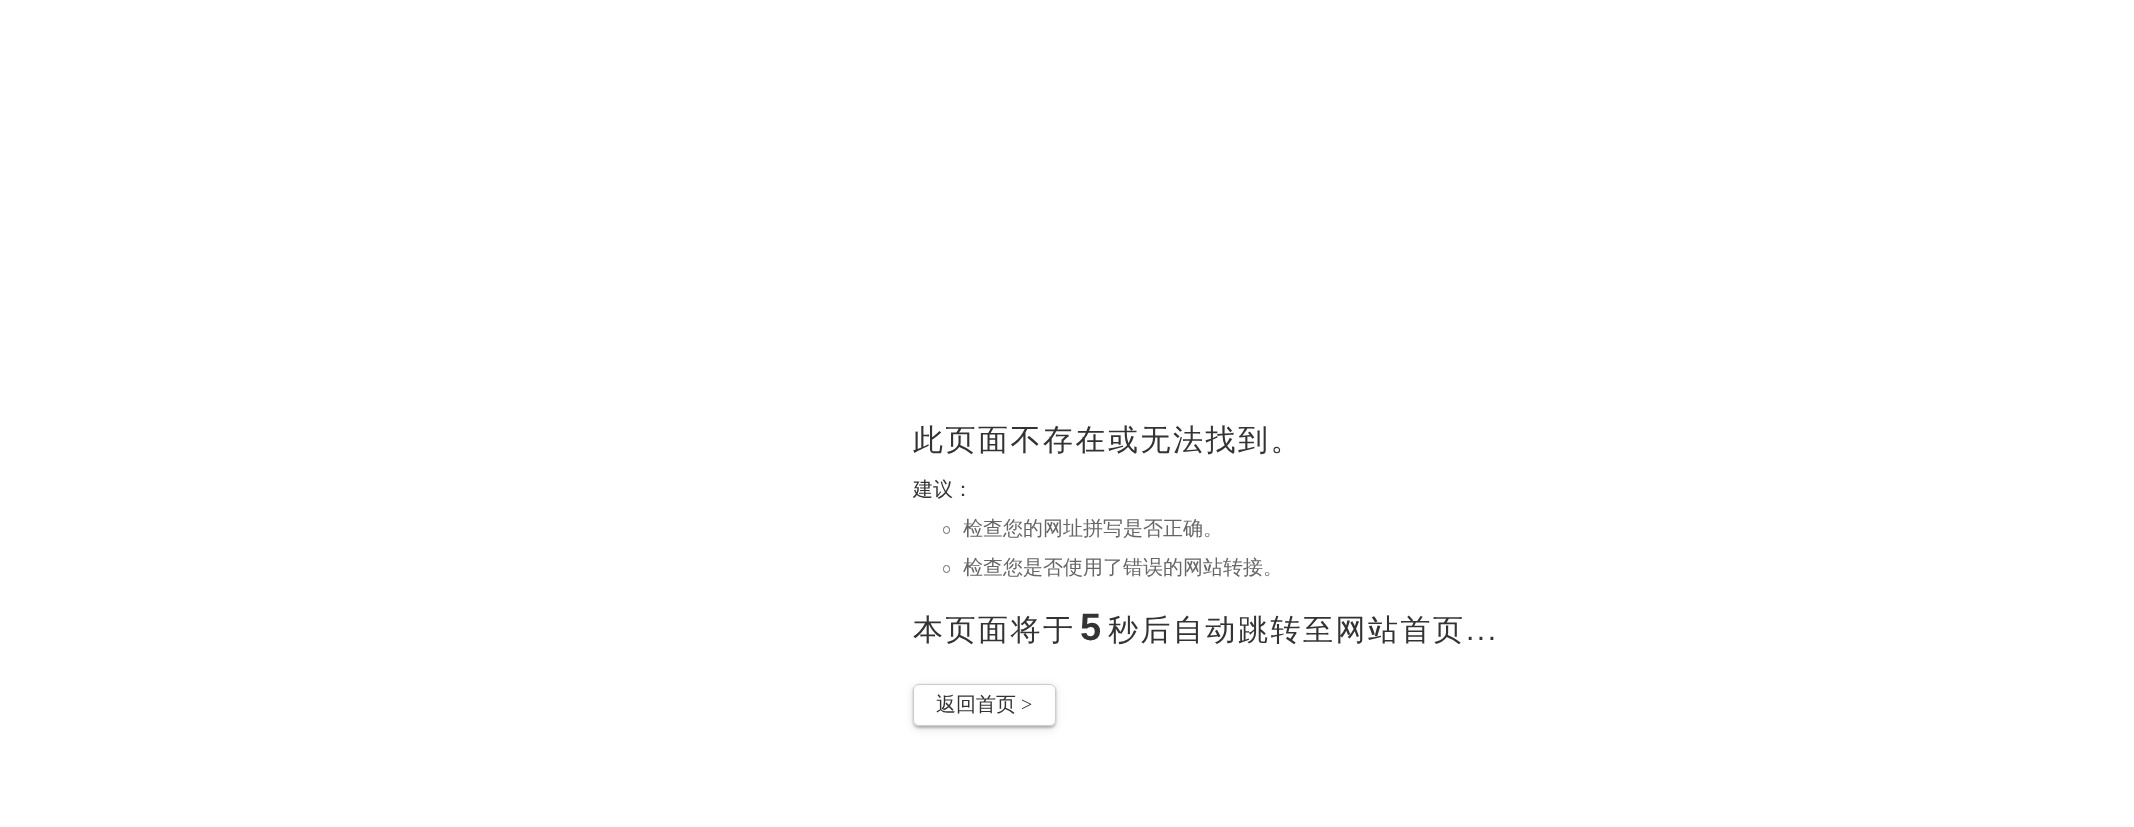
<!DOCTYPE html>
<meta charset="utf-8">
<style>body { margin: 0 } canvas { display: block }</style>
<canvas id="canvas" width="2134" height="827"></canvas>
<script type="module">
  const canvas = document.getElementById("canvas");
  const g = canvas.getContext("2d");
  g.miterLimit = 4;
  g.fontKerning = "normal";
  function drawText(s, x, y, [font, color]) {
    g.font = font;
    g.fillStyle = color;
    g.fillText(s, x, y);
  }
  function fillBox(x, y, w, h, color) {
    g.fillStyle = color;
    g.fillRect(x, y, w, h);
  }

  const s1 = ["500 30px WenQuanYi Zen Hei", "#333333"];
  const s2 = ["500 20px WenQuanYi Zen Hei", "#333333"];
  const s3 = ["500 20px WenQuanYi Zen Hei", "#666666"];
  const s4 = ["bold 38px Liberation Sans", "#333333"];
  const s5 = ["30px Liberation Sans", "#333333"];
  const s6 = ["20px Liberation Serif", "#333333"];

  fillBox(0, 0, 2134, 827, "#FFFFFF");
  g.letterSpacing = "2.5px";
  drawText("此页面不存在或无法找到。", 913, 450, s1);
  g.letterSpacing = "0px";
  drawText("建议：", 913, 496, s2);
  g.beginPath();
  g.roundRect(943.5, 526.5, 6, 7, 3);
  g.strokeStyle = "#666666";
  g.stroke();
  drawText("检查您的网址拼写是否正确。", 963, 535, s3);
  g.beginPath();
  g.roundRect(943.5, 565.5, 6, 7, 3);
  g.stroke();
  drawText("检查您是否使用了错误的网站转接。", 963, 574, s3);
  g.letterSpacing = "2.5px";
  drawText("本页面将于", 913, 640, s1);
  drawText("5", 1080, 640, s4);
  drawText("秒后自动跳转至网站首页", 1108, 640, s1);
  drawText("...", 1466, 640, s5);
  g.save();
  g.beginPath();
  g.moveTo(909, 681);
  g.lineTo(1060, 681);
  g.lineTo(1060, 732);
  g.lineTo(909, 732);
  g.closePath();
  g.moveTo(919, 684);
  g.lineTo(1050, 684);
  g.bezierCurveTo(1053.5, 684, 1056, 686.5, 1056, 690);
  g.lineTo(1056, 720);
  g.bezierCurveTo(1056, 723.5, 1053.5, 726, 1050, 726);
  g.lineTo(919, 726);
  g.bezierCurveTo(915.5, 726, 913, 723.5, 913, 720);
  g.lineTo(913, 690);
  g.bezierCurveTo(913, 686.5, 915.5, 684, 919, 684);
  g.closePath();
  g.clip("evenodd");
  g.fillStyle = "rgba(0, 0, 0, 0.24)";
  g.filter = "blur(1px)";
  g.beginPath();
  g.roundRect(913, 685, 143, 43, 6);
  g.fill();
  g.filter = "none";
  g.restore();
  g.save();
  g.beginPath();
  g.moveTo(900, 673);
  g.lineTo(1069, 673);
  g.lineTo(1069, 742);
  g.lineTo(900, 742);
  g.closePath();
  g.moveTo(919, 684);
  g.lineTo(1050, 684);
  g.bezierCurveTo(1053.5, 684, 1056, 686.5, 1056, 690);
  g.lineTo(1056, 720);
  g.bezierCurveTo(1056, 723.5, 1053.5, 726, 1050, 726);
  g.lineTo(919, 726);
  g.bezierCurveTo(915.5, 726, 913, 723.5, 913, 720);
  g.lineTo(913, 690);
  g.bezierCurveTo(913, 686.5, 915.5, 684, 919, 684);
  g.closePath();
  g.clip("evenodd");
  g.fillStyle = "rgba(0, 0, 0, 0.12)";
  g.filter = "blur(4px)";
  g.beginPath();
  g.roundRect(913, 686, 143, 43, 6);
  g.fill();
  g.filter = "none";
  g.restore();
  g.beginPath();
  g.roundRect(913.5, 684.5, 142, 41, 5.5);
  g.strokeStyle = "#CCCCCC";
  g.stroke();
  g.letterSpacing = "0px";
  drawText("返回首页", 936, 711, s2);
  drawText(">", 1021, 711, s6);
</script>
